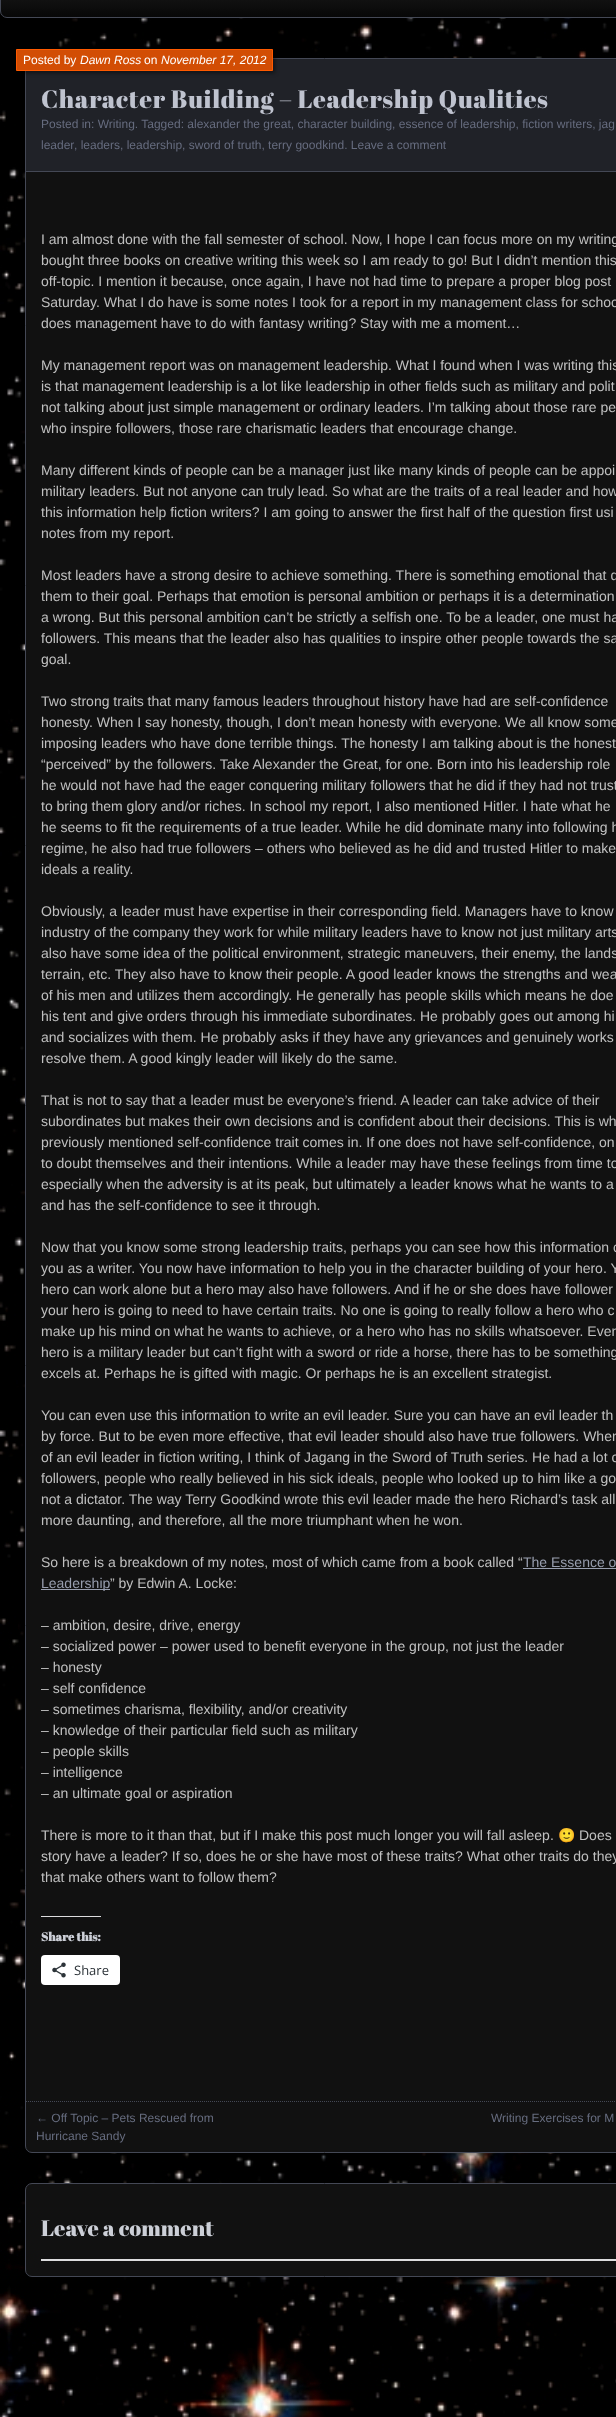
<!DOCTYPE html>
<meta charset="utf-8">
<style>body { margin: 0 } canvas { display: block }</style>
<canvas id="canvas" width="616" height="2417"></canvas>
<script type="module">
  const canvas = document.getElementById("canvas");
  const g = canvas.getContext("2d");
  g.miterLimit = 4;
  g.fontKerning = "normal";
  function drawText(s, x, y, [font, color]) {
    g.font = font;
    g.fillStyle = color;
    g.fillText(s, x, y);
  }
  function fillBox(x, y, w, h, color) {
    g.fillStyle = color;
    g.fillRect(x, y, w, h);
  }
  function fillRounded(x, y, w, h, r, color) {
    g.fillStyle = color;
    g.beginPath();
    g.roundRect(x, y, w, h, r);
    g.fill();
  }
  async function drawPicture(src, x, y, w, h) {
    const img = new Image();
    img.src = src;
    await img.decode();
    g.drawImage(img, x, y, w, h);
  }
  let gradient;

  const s1 = ["12px Liberation Sans", "#FFFFFF"];
  const s2 = ["italic 12px Liberation Sans", "#FFFFFF"];
  const s3 = ["25px Abril Fatface", "#BFC3CF"];
  const s4 = ["12px Liberation Sans", "#666C7F"];
  const s5 = ["14px Liberation Sans", "#C0C0C0"];
  const s6 = ["14px Liberation Sans", "#989EAE"];
  const s7 = ["14px Noto Color Emoji", "#C0C0C0"];
  const s8 = ["bold 12px Abril Fatface", "#CCCFD7"];
  const s9 = ["13px Open Sans", "#2C3338"];
  const s10 = ["22px Abril Fatface", "#CCCFD7"];

  fillBox(0, 0, 616, 2417, "#FFFFFF");
  await drawPicture("pic1.png", 0, 11, 616, 2406);
  g.fillStyle = "rgba(0, 0, 0, 0.45)";
  g.filter = "blur(2px)";
  g.beginPath();
  g.roundRect(3, -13, 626, 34, 7);
  g.fill();
  g.filter = "none";
  g.save();
  g.beginPath();
  g.roundRect(0, -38, 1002, 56, 7);
  g.clip();
  gradient = g.createLinearGradient(501, -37, 501, 17);
  gradient.addColorStop(0.01, "#272727");
  gradient.addColorStop(1, "#070707");
  g.fillStyle = gradient;
  g.fillRect(0, 0, 616, 17);
  g.restore();
  g.beginPath();
  g.roundRect(0.5, -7.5, 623, 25, 6.5);
  g.strokeStyle = "#444855";
  g.stroke();
  g.filter = "blur(2px)";
  g.beginPath();
  g.roundRect(28, 61, 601, 2095, 7);
  g.fill();
  g.filter = "none";
  g.fillStyle = "#111111";
  g.beginPath();
  g.roundRect(25.5, 58.5, 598, 2094, 6.5);
  g.fill();
  g.stroke();
  fillBox(26, 59, 590, 112, "#202228");
  fillBox(26, 171, 590, 1, "#444855");
  g.fillStyle = "rgba(0, 0, 0, 0.45)";
  g.filter = "blur(2px)";
  g.beginPath();
  g.rect(18, 51, 257, 22);
  g.fill();
  g.filter = "none";
  g.fillStyle = "#D24D04";
  g.beginPath();
  g.rect(16.5, 49.5, 256, 21);
  g.fill();
  g.strokeStyle = "#FF5A00";
  g.stroke();
  drawText("Posted by", 23, 64, s1);
  drawText("Dawn Ross", 80, 64, s2);
  drawText("on", 144, 64, s1);
  drawText("November 17, 2012", 161, 64, s2);
  g.letterSpacing = "0.6px";
  drawText("Character Building – Leadership Qualities", 41, 108, s3);
  g.letterSpacing = "0px";
  drawText("Posted in: Writing. Tagged: alexander the great, character building, essence of leadership, fiction writers, jag", 41, 128, s4);
  drawText("leader", 41, 149, s4);
  drawText(", leaders, leadership, sword of truth, terry goodkind. Leave a comment", 74, 149, s4);
  drawText("I am almost done with the fall semester of school. Now, I hope I can focus more on my writing", 41, 244, s5);
  drawText("bought three books on creative writing this week so I am ready to go! But I didn’t mention this", 41, 265, s5);
  drawText("off-topic. I mention it because, once again, I have not had time to prepare a proper blog post", 41, 286, s5);
  drawText("Saturday. What I do have is some notes I took for a report in my management class for schoo", 41, 307, s5);
  drawText("does management have to do with fantasy writing? Stay with me a moment…", 41, 328, s5);
  drawText("My management report was on management leadership. What I found when I was writing this", 41, 370, s5);
  drawText("is that management leadership is a lot like leadership in other fields such as military and polit", 41, 391, s5);
  drawText("not talking about just simple management or ordinary leaders. I’m talking about those rare pe", 41, 412, s5);
  drawText("who inspire followers, those rare charismatic leaders that encourage change.", 41, 433, s5);
  drawText("Many different kinds of people can be a manager just like many kinds of people can be appoi", 41, 475, s5);
  drawText("military leaders. But not anyone can truly lead. So what are the traits of a real leader and how", 41, 496, s5);
  drawText("this information help fiction writers? I am going to answer the first half of the question first usi", 41, 517, s5);
  drawText("notes from my report.", 41, 538, s5);
  drawText("Most leaders have a strong desire to achieve something. There is something emotional that d", 41, 580, s5);
  drawText("them to their goal. Perhaps that emotion is personal ambition or perhaps it is a determination", 41, 601, s5);
  drawText("a wrong. But this personal ambition can’t be strictly a selfish one. To be a leader, one must ha", 41, 622, s5);
  drawText("followers. This means that the leader also has qualities to inspire other people towards the sa", 41, 643, s5);
  drawText("goal.", 41, 664, s5);
  drawText("Two strong traits that many famous leaders throughout history have had are self-confidence", 41, 706, s5);
  drawText("honesty. When I say honesty, though, I don’t mean honesty with everyone. We all know some", 41, 727, s5);
  drawText("imposing leaders who have done terrible things. The honesty I am talking about is the honest", 41, 748, s5);
  drawText("“perceived” by the followers. Take Alexander the Great, for one. Born into his leadership role", 41, 769, s5);
  drawText("he would not have had the eager conquering military followers that he did if they had not trust", 41, 790, s5);
  drawText("to bring them glory and/or riches. In school my report, I also mentioned Hitler. I hate what he", 41, 811, s5);
  drawText("he seems to fit the requirements of a true leader. While he did dominate many into following h", 41, 832, s5);
  drawText("regime, he also had true followers – others who believed as he did and trusted Hitler to make", 41, 853, s5);
  drawText("ideals a reality.", 41, 874, s5);
  drawText("Obviously, a leader must have expertise in their corresponding field. Managers have to know", 41, 916, s5);
  drawText("industry of the company they work for while military leaders have to know not just military arts", 41, 937, s5);
  drawText("also have some idea of the political environment, strategic maneuvers, their enemy, the lands", 41, 958, s5);
  drawText("terrain, etc. They also have to know their people. A good leader knows the strengths and wea", 41, 979, s5);
  drawText("of his men and utilizes them accordingly. He generally has people skills which means he doe", 41, 1000, s5);
  drawText("his tent and give orders through his immediate subordinates. He probably goes out among hi", 41, 1021, s5);
  drawText("and socializes with them. He probably asks if they have any grievances and genuinely works", 41, 1042, s5);
  drawText("resolve them. A good kingly leader will likely do the same.", 41, 1063, s5);
  drawText("That is not to say that a leader must be everyone’s friend. A leader can take advice of their", 41, 1105, s5);
  drawText("subordinates but makes their own decisions and is confident about their decisions. This is wh", 41, 1126, s5);
  drawText("previously mentioned self-confidence trait comes in. If one does not have self-confidence, on", 41, 1147, s5);
  drawText("to doubt themselves and their intentions. While a leader may have these feelings from time to", 41, 1168, s5);
  drawText("especially when the adversity is at its peak, but ultimately a leader knows what he wants to a", 41, 1189, s5);
  drawText("and has the self-confidence to see it through.", 41, 1210, s5);
  drawText("Now that you know some strong leadership traits, perhaps you can see how this information c", 41, 1252, s5);
  drawText("you as a writer. You now have information to help you in the character building of your hero. Y", 41, 1273, s5);
  drawText("hero can work alone but a hero may also have followers. And if he or she does have follower", 41, 1294, s5);
  drawText("your hero is going to need to have certain traits. No one is going to really follow a hero who c", 41, 1315, s5);
  drawText("make up his mind on what he wants to achieve, or a hero who has no skills whatsoever. Even", 41, 1336, s5);
  drawText("hero is a military leader but can’t fight with a sword or ride a horse, there has to be something", 41, 1357, s5);
  drawText("excels at. Perhaps he is gifted with magic. Or perhaps he is an excellent strategist.", 41, 1378, s5);
  drawText("You can even use this information to write an evil leader. Sure you can have an evil leader th", 41, 1420, s5);
  drawText("by force. But to be even more effective, that evil leader should also have true followers. When", 41, 1441, s5);
  drawText("of an evil leader in fiction writing, I think of Jagang in the Sword of Truth series. He had a lot o", 41, 1462, s5);
  drawText("followers, people who really believed in his sick ideals, people who looked up to him like a go", 41, 1483, s5);
  drawText("not a dictator. The way Terry Goodkind wrote this evil leader made the hero Richard’s task all", 41, 1504, s5);
  drawText("more daunting, and therefore, all the more triumphant when he won.", 41, 1525, s5);
  drawText("So here is a breakdown of my notes, most of which came from a book called “", 41, 1567, s5);
  fillBox(523, 1568, 93, 1, "#989EAE");
  drawText("The Essence o", 523, 1567, s6);
  fillBox(41, 1589, 69, 1, "#989EAE");
  drawText("Leadership", 41, 1588, s6);
  drawText("” by Edwin A. Locke:", 110, 1588, s5);
  drawText("– ambition, desire, drive, energy", 41, 1630, s5);
  drawText("– socialized power – power used to benefit everyone in the group, not just the leader", 41, 1651, s5);
  drawText("– honesty", 41, 1672, s5);
  drawText("– self confidence", 41, 1693, s5);
  drawText("– sometimes charisma, flexibility, and/or creativity", 41, 1714, s5);
  drawText("– knowledge of their particular field such as military", 41, 1735, s5);
  drawText("– people skills", 41, 1756, s5);
  drawText("– intelligence", 41, 1777, s5);
  drawText("– an ultimate goal or aspiration", 41, 1798, s5);
  drawText("There is more to it than that, but if I make this post much longer you will fall asleep.", 41, 1840, s5);
  drawText("🙂", 558, 1840, s7);
  drawText("Does", 579, 1840, s5);
  drawText("story have a leader? If so, does he or she have most of these traits? What other traits do they", 41, 1861, s5);
  drawText("that make others want to follow them?", 41, 1882, s5);
  fillBox(41, 1916, 60, 1, "#DCDCDE");
  drawText("Share this:", 41, 1941, s8);
  fillRounded(41, 1955, 79, 30, 4, "#FFFFFF");
  await drawPicture("pic2.png", 52, 1962, 14, 16);
  drawText("Share", 74, 1975, s9);
  g.beginPath();
  g.moveTo(26, 2101.5);
  g.lineTo(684, 2101.5);
  g.strokeStyle = "#444855";
  g.setLineDash([1, 1]);
  g.stroke();
  drawText("← Off Topic – Pets Rescued from", 36, 2122, s4);
  drawText("Hurricane Sandy", 36, 2140, s4);
  drawText("Writing Exercises for M", 491, 2122, s4);
  g.fillStyle = "rgba(0, 0, 0, 0.45)";
  g.filter = "blur(2px)";
  g.beginPath();
  g.roundRect(28, 2186, 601, 94, 7);
  g.fill();
  g.filter = "none";
  g.fillStyle = "#111111";
  g.beginPath();
  g.roundRect(25.5, 2183.5, 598, 93, 6.5);
  g.fill();
  g.setLineDash([]);
  g.stroke();
  drawText("Leave a comment", 41, 2236, s10);
  fillBox(41, 2259, 575, 2, "#DCDCDE");
</script>
